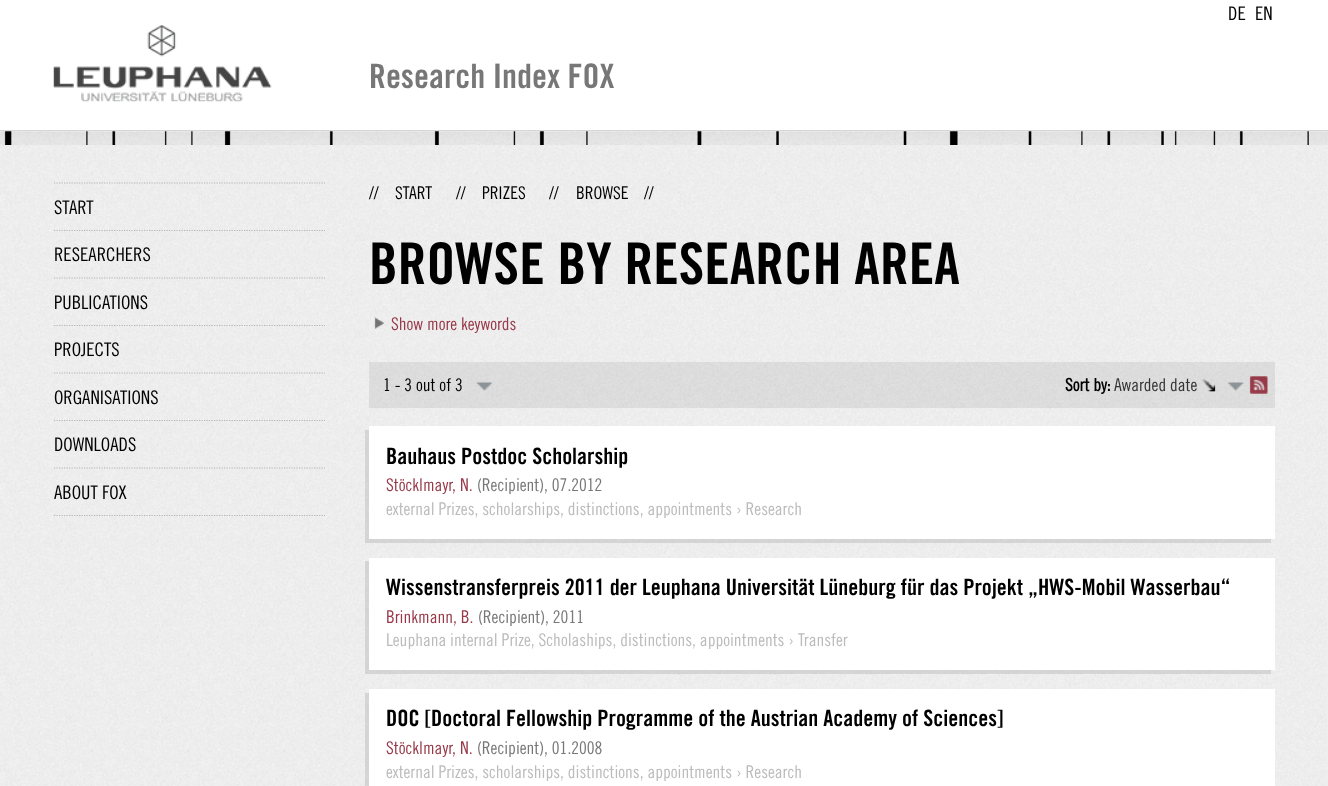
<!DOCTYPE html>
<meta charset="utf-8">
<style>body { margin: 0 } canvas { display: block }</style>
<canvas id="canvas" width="1328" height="786"></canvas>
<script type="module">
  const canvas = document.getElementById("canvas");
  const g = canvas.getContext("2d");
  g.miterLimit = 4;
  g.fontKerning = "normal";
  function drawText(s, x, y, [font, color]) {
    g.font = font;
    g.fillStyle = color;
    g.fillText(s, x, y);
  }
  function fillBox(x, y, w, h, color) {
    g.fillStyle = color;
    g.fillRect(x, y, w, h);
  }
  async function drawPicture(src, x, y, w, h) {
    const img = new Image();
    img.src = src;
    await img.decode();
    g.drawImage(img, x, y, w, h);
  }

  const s1 = ["18.75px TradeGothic", "#000000"];
  const s2 = ["bold 33.75px 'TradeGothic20'", "#777777"];
  const s3 = ["17.5px TradeGothic", "#000000"];
  const s4 = ["bold 57.5px 'TradeGothic20'", "#000000"];
  const s5 = ["17.5px TradeGothic", "#973948"];
  const s6 = ["bold 17.5px TradeGothic", "#000000"];
  const s7 = ["17.5px TradeGothic", "#333333"];
  const s8 = ["bold 22.5px 'TradeGothic20'", "#000000"];
  const s9 = ["17.5px TradeGothic", "#777777"];
  const s10 = ["17.5px TradeGothic", "#BBBBBB"];

  fillBox(0, 0, 1328, 786, "#EEEEEE");
  await drawPicture("pic1.png", 0, 145, 1327, 641);
  fillBox(0, 0, 1328, 132, "#FFFFFF");
  fillBox(0, 130, 1328, 1, "#D6D6D6");
  drawText("DE", 1228, 20, s1);
  drawText("EN", 1255, 20, s1);
  await drawPicture("pic2.png", 53, 25, 219, 77);
  drawText("Research Index FOX", 369, 88, s2);
  await drawPicture("pic3.png", 0, 131, 1328, 14);
  g.beginPath();
  g.moveTo(54, 515.5);
  g.lineTo(325, 515.5);
  g.strokeStyle = "#B5B5B5";
  g.lineWidth = 1.2;
  g.setLineDash([1.25, 1.25]);
  g.stroke();
  g.beginPath();
  g.moveTo(54, 183);
  g.lineTo(325, 183);
  g.stroke();
  drawText("START", 54, 214, s1);
  g.beginPath();
  g.moveTo(54, 230.5);
  g.lineTo(325, 230.5);
  g.stroke();
  drawText("RESEARCHERS", 54, 261, s1);
  g.beginPath();
  g.moveTo(54, 278);
  g.lineTo(325, 278);
  g.stroke();
  drawText("PUBLICATIONS", 54, 309, s1);
  g.beginPath();
  g.moveTo(54, 325.5);
  g.lineTo(325, 325.5);
  g.stroke();
  drawText("PROJECTS", 54, 356, s1);
  g.beginPath();
  g.moveTo(54, 373);
  g.lineTo(325, 373);
  g.stroke();
  drawText("ORGANISATIONS", 54, 404, s1);
  g.beginPath();
  g.moveTo(54, 420.5);
  g.lineTo(325, 420.5);
  g.stroke();
  drawText("DOWNLOADS", 54, 451, s1);
  g.beginPath();
  g.moveTo(54, 468);
  g.lineTo(325, 468);
  g.stroke();
  drawText("ABOUT FOX", 54, 499, s1);
  drawText("//", 369, 199, s3);
  drawText("START", 395, 199, s3);
  drawText("//", 456, 199, s3);
  drawText("PRIZES", 482, 199, s3);
  drawText("//", 549, 199, s3);
  drawText("BROWSE", 576, 199, s3);
  drawText("//", 644, 199, s3);
  drawText("BROWSE BY RESEARCH AREA", 369, 284, s4);
  await drawPicture("pic4.png", 374, 317, 10, 12);
  drawText("Show more keywords", 391, 330, s5);
  fillBox(369, 362, 906, 46, "rgba(0, 0, 0, 0.07)");
  await drawPicture("pic5.png", 476, 382, 17, 9);
  drawText("1 - 3 out of 3", 383, 391, s3);
  await drawPicture("pic6.png", 1227, 382, 17, 9);
  drawText("Sort by:", 1065, 391, s6);
  drawText("Awarded date", 1114, 391, s7);
  await drawPicture("pic7.png", 1202, 378, 14, 14);
  await drawPicture("pic8.png", 1249, 376, 19, 18);
  g.fillStyle = "rgba(0, 0, 0, 0.1)";
  g.beginPath();
  g.moveTo(365, 430);
  g.lineTo(365, 543);
  g.lineTo(1271, 543);
  g.lineTo(1271, 539);
  g.lineTo(369, 539);
  g.lineTo(369, 430);
  g.closePath();
  g.fill();
  fillBox(369, 426, 906, 113, "#FFFFFF");
  drawText("Bauhaus Postdoc Scholarship", 386, 464, s8);
  drawText("Stöcklmayr, N.", 386, 491, s5);
  drawText("(Recipient), 07.2012", 477, 491, s9);
  drawText("external Prizes, scholarships, distinctions, appointments › Research", 386, 515, s10);
  g.fillStyle = "rgba(0, 0, 0, 0.1)";
  g.beginPath();
  g.moveTo(365, 561);
  g.lineTo(365, 674);
  g.lineTo(1271, 674);
  g.lineTo(1271, 670);
  g.lineTo(369, 670);
  g.lineTo(369, 561);
  g.closePath();
  g.fill();
  fillBox(369, 558, 906, 112, "#FFFFFF");
  drawText("Wissenstransferpreis 2011 der Leuphana Universität Lüneburg für das Projekt „HWS-Mobil Wasserbau“", 386, 595, s8);
  drawText("Brinkmann, B.", 386, 623, s5);
  drawText("(Recipient), 2011", 478, 623, s9);
  drawText("Leuphana internal Prize, Scholaships, distinctions, appointments › Transfer", 386, 646, s10);
  g.fillStyle = "rgba(0, 0, 0, 0.1)";
  g.beginPath();
  g.moveTo(365, 693);
  g.lineTo(365, 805);
  g.lineTo(1271, 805);
  g.lineTo(1271, 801);
  g.lineTo(369, 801);
  g.lineTo(369, 693);
  g.closePath();
  g.fill();
  fillBox(369, 689, 906, 97, "#FFFFFF");
  drawText("DOC [Doctoral Fellowship Programme of the Austrian Academy of Sciences]", 386, 726, s8);
  drawText("Stöcklmayr, N.", 386, 754, s5);
  drawText("(Recipient), 01.2008", 477, 754, s9);
  drawText("external Prizes, scholarships, distinctions, appointments › Research", 386, 778, s10);
</script>
